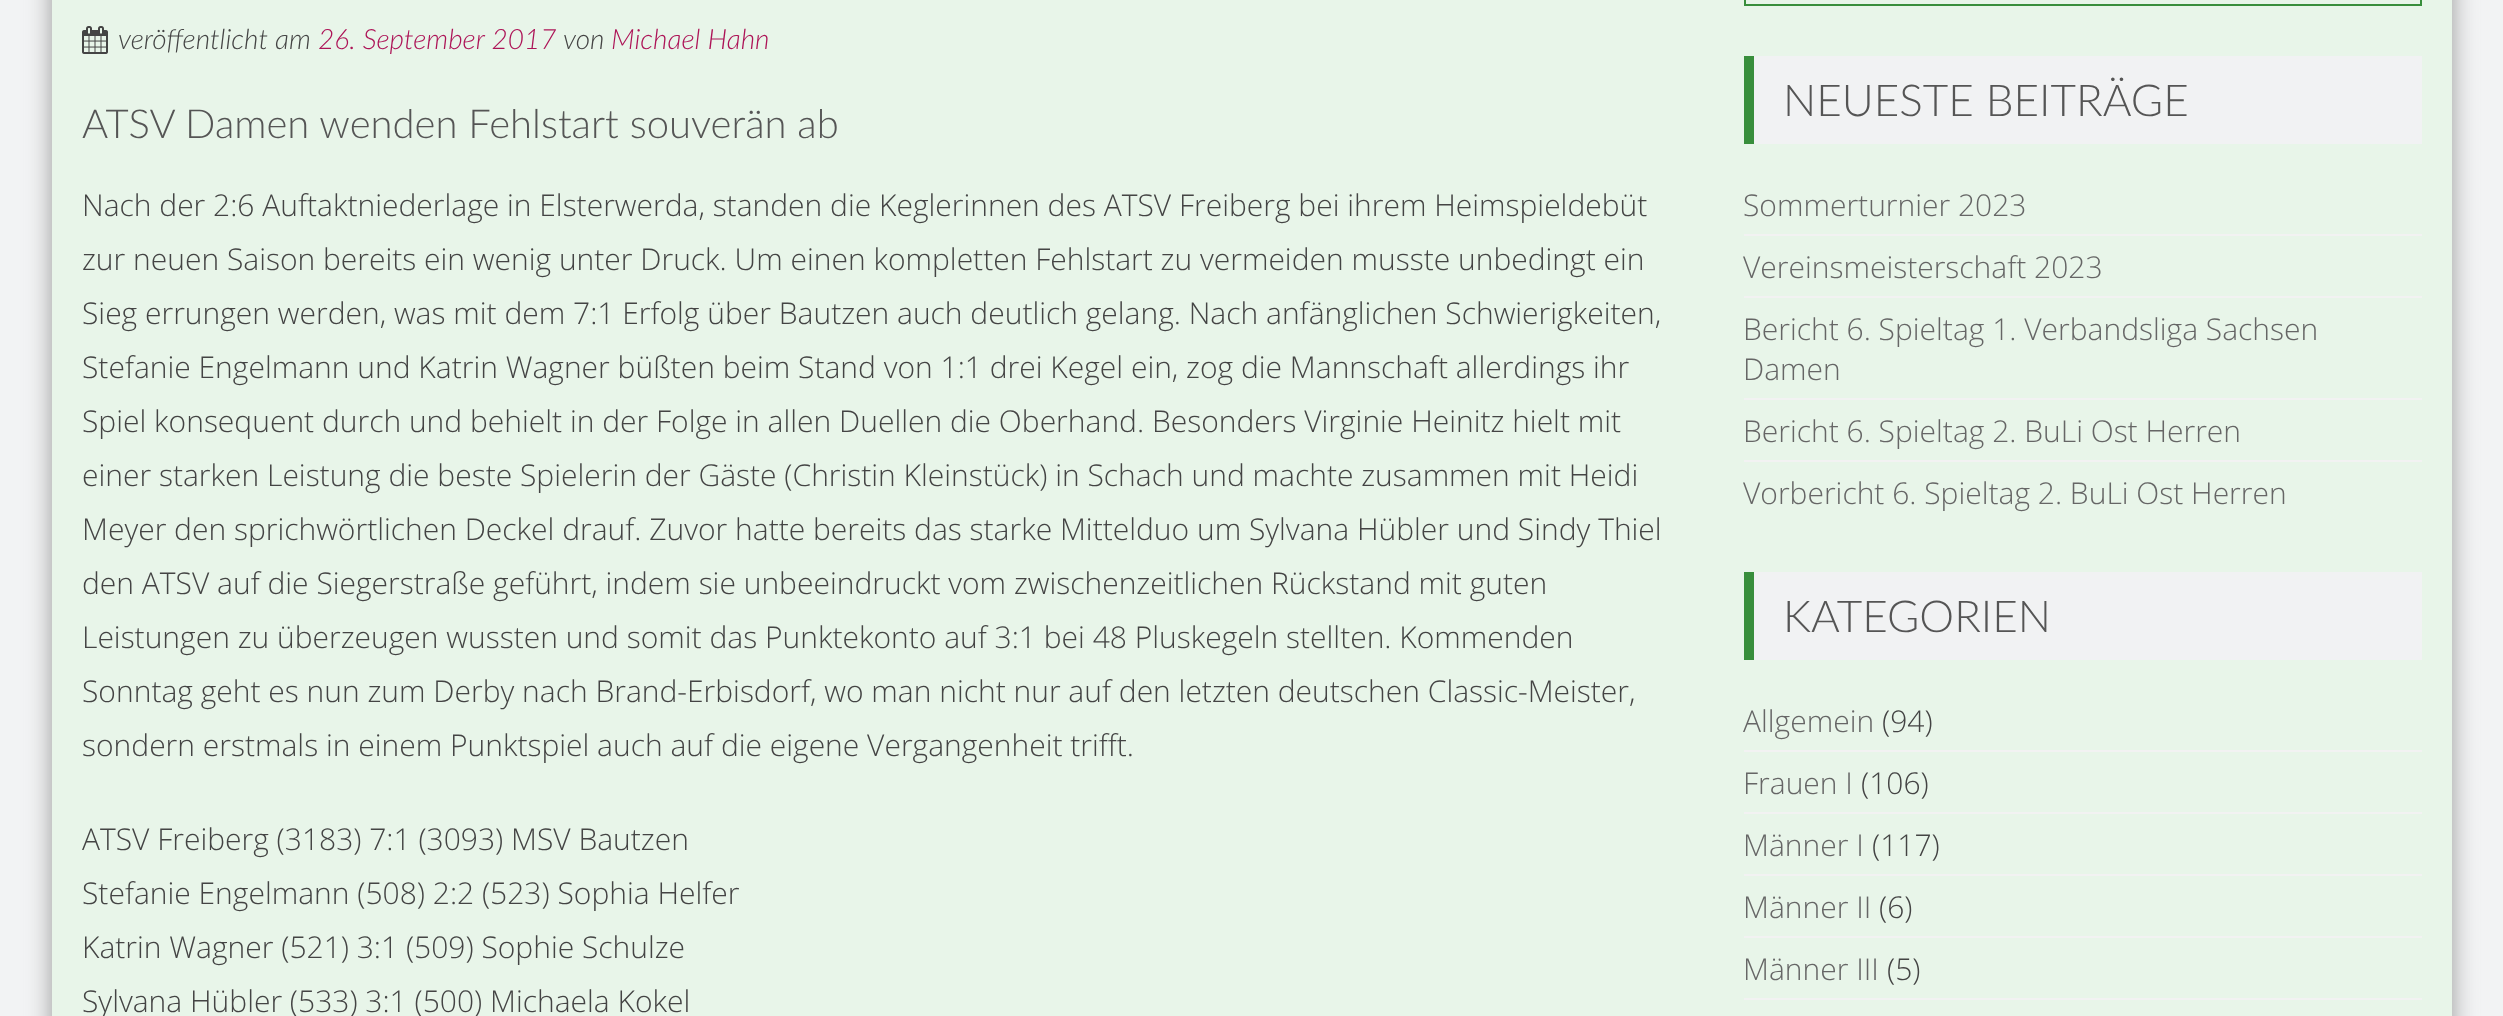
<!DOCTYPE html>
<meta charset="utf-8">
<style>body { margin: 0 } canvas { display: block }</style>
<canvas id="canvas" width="2503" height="1016"></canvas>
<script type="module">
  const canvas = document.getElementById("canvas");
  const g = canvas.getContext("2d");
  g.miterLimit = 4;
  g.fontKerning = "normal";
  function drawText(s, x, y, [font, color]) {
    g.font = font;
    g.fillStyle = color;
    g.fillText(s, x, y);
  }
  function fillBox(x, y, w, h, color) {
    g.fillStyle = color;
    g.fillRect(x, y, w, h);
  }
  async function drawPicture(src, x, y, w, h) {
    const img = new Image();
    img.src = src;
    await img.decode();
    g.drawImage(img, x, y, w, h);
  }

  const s1 = ["italic 300 28px Lato", "#444444"];
  const s2 = ["italic 300 28px Lato", "#AD1457"];
  const s3 = ["300 40px Lato", "#555555"];
  const s4 = ["300 30px Open Sans", "#444444"];
  const s5 = ["300 44px Lato", "#555555"];
  const s6 = ["300 30px Open Sans", "#666666"];

  fillBox(0, 0, 2503, 1016, "#F2F3F4");
  g.fillStyle = "#999999";
  g.filter = "blur(12px)";
  g.beginPath();
  g.rect(52, -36, 2400, 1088);
  g.fill();
  g.filter = "none";
  fillBox(52, 0, 2400, 1016, "#E8F5E9");
  await drawPicture("pic1.png", 82, 26, 26, 28);
  drawText("veröffentlicht am", 118, 49, s1);
  drawText("26. September 2017", 318, 49, s2);
  drawText("von", 563, 49, s1);
  drawText("Michael Hahn", 611, 49, s2);
  drawText("ATSV Damen wenden Fehlstart souverän ab", 82, 138, s3);
  drawText("Nach der 2:6 Auftaktniederlage in Elsterwerda, standen die Keglerinnen des ATSV Freiberg bei ihrem Heimspieldebüt", 82, 216, s4);
  drawText("zur neuen Saison bereits ein wenig unter Druck. Um einen kompletten Fehlstart zu vermeiden musste unbedingt ein", 82, 270, s4);
  drawText("Sieg errungen werden, was mit dem 7:1 Erfolg über Bautzen auch deutlich gelang. Nach anfänglichen Schwierigkeiten,", 82, 324, s4);
  drawText("Stefanie Engelmann und Katrin Wagner büßten beim Stand von 1:1 drei Kegel ein, zog die Mannschaft allerdings ihr", 82, 378, s4);
  drawText("Spiel konsequent durch und behielt in der Folge in allen Duellen die Oberhand. Besonders Virginie Heinitz hielt mit", 82, 432, s4);
  drawText("einer starken Leistung die beste Spielerin der Gäste (Christin Kleinstück) in Schach und machte zusammen mit Heidi", 82, 486, s4);
  drawText("Meyer den sprichwörtlichen Deckel drauf. Zuvor hatte bereits das starke Mittelduo um Sylvana Hübler und Sindy Thiel", 82, 540, s4);
  drawText("den ATSV auf die Siegerstraße geführt, indem sie unbeeindruckt vom zwischenzeitlichen Rückstand mit guten", 82, 594, s4);
  drawText("Leistungen zu überzeugen wussten und somit das Punktekonto auf 3:1 bei 48 Pluskegeln stellten. Kommenden", 82, 648, s4);
  drawText("Sonntag geht es nun zum Derby nach Brand-Erbisdorf, wo man nicht nur auf den letzten deutschen Classic-Meister,", 82, 702, s4);
  drawText("sondern erstmals in einem Punktspiel auch auf die eigene Vergangenheit trifft.", 82, 756, s4);
  drawText("ATSV Freiberg (3183) 7:1 (3093) MSV Bautzen", 82, 850, s4);
  drawText("Stefanie Engelmann (508) 2:2 (523) Sophia Helfer", 82, 904, s4);
  drawText("Katrin Wagner (521) 3:1 (509) Sophie Schulze", 82, 958, s4);
  drawText("Sylvana Hübler (533) 3:1 (500) Michaela Kokel", 82, 1012, s4);
  g.strokeStyle = "#388E3C";
  g.lineWidth = 2;
  g.strokeRect(1745, -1, 676, 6);
  fillBox(1754, 56, 668, 88, "#F1F2F3");
  fillBox(1744, 56, 10, 88, "#388E3C");
  drawText("NEUESTE BEITRÄGE", 1783, 116, s5);
  fillBox(1744, 234, 678, 2, "#F2F2F2");
  drawText("Sommerturnier 2023", 1743, 216, s6);
  fillBox(1744, 296, 678, 2, "#F2F2F2");
  drawText("Vereinsmeisterschaft 2023", 1743, 278, s6);
  fillBox(1744, 398, 678, 2, "#F2F2F2");
  drawText("Bericht 6. Spieltag 1. Verbandsliga Sachsen", 1743, 340, s6);
  drawText("Damen", 1743, 380, s6);
  fillBox(1744, 460, 678, 2, "#F2F2F2");
  drawText("Bericht 6. Spieltag 2. BuLi Ost Herren", 1743, 442, s6);
  drawText("Vorbericht 6. Spieltag 2. BuLi Ost Herren", 1743, 504, s6);
  fillBox(1754, 572, 668, 88, "#F1F2F3");
  fillBox(1744, 572, 10, 88, "#388E3C");
  drawText("KATEGORIEN", 1783, 632, s5);
  fillBox(1744, 750, 678, 2, "#F2F2F2");
  drawText("Allgemein", 1743, 732, s6);
  drawText("(94)", 1882, 732, s4);
  fillBox(1744, 812, 678, 2, "#F2F2F2");
  drawText("Frauen I", 1743, 794, s6);
  drawText("(106)", 1861, 794, s4);
  fillBox(1744, 874, 678, 2, "#F2F2F2");
  drawText("Männer I", 1743, 856, s6);
  drawText("(117)", 1872, 856, s4);
  fillBox(1744, 936, 678, 2, "#F2F2F2");
  drawText("Männer II", 1743, 918, s6);
  drawText("(6)", 1879, 918, s4);
  fillBox(1744, 998, 678, 2, "#F2F2F2");
  drawText("Männer III", 1743, 980, s6);
  drawText("(5)", 1887, 980, s4);
</script>
